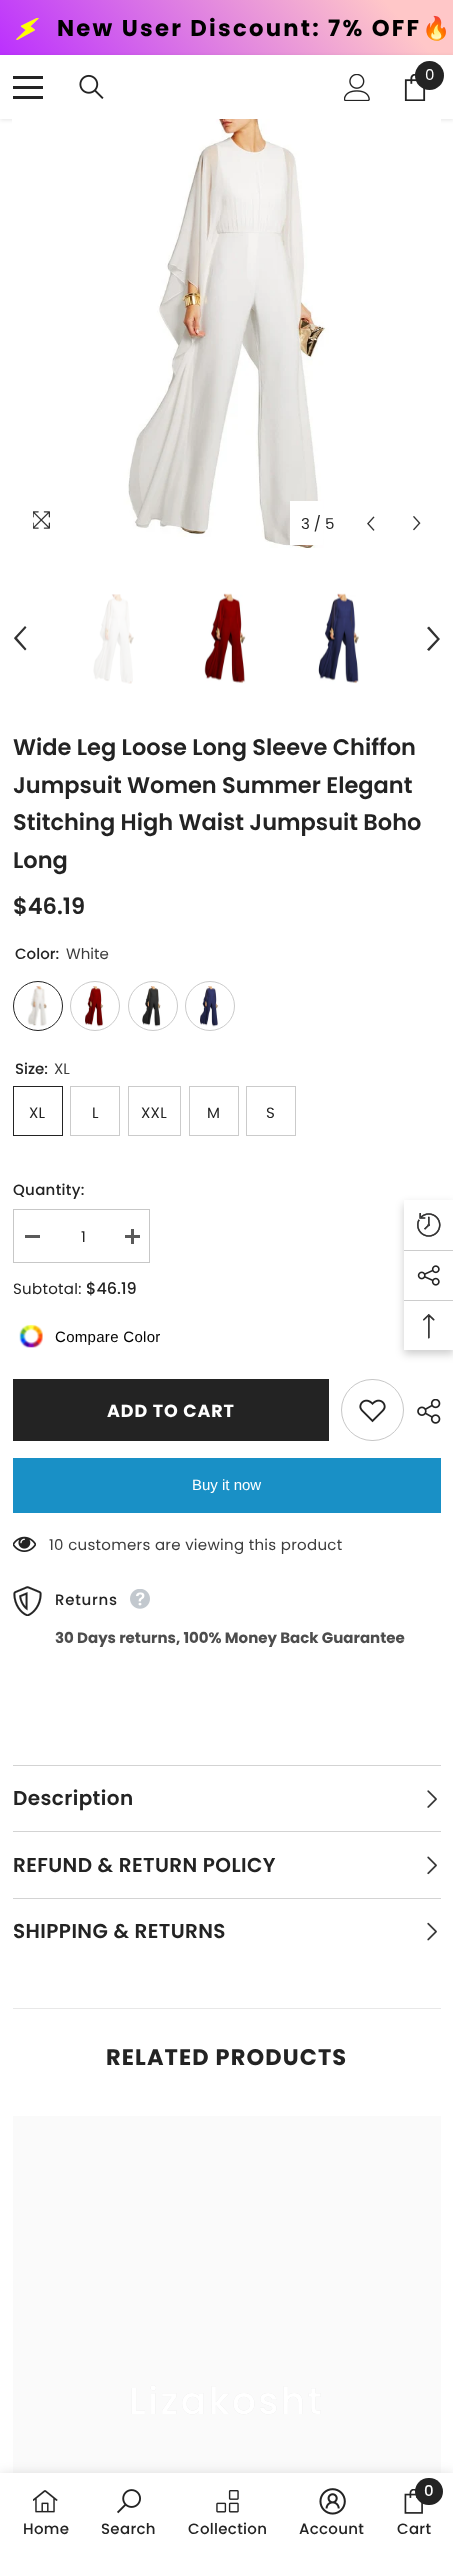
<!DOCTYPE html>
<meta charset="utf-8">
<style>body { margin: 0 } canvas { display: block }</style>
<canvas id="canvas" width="453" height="2549"></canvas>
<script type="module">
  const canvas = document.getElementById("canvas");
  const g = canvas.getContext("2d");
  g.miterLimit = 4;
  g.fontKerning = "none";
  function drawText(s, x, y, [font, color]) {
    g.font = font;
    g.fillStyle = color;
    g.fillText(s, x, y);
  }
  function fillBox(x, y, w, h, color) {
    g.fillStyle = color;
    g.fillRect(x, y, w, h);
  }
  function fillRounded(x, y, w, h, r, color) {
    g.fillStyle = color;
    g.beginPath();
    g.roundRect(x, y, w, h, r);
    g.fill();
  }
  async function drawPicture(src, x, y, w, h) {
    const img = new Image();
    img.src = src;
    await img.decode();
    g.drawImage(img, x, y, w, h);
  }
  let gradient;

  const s1 = ["bold 22.75px Poppins", "#000000"];
  const s2 = ["bold 22.75px Noto Color Emoji", "#000000"];
  const s3 = ["15px Poppins", "#FFFFFF"];
  const s4 = ["15px Poppins", "#232323"];
  const s5 = ["600 22.5px Poppins", "#232323"];
  const s6 = ["500 15px Poppins", "#232323"];
  const s7 = ["15px Poppins", "#3C3C3C"];
  const s8 = ["500 16px Poppins", "#232323"];
  const s9 = ["15px Liberation Sans", "#000000"];
  const s10 = ["bold 17.5px Poppins", "#FFFFFF"];
  const s11 = ["15px Liberation Sans", "#FFFFFF"];
  const s12 = ["bold 15px Poppins", "#4D4D4D"];
  const s13 = ["600 20px Poppins", "#232323"];
  const s14 = ["bold 22.5px Poppins", "#232323"];
  const s15 = ["500 37.5px Poppins", "#DEDEDE"];
  const s16 = ["500 37.5px Poppins", "#FFFFFF"];
  const s17 = ["500 15px Poppins", "#FFFFFF"];

  fillBox(0, 0, 453, 2549, "#FFFFFF");
  gradient = g.createLinearGradient(366, -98, 88, 153);
  gradient.addColorStop(0.14, "#FFC7C8");
  gradient.addColorStop(1, "#BB30FE");
  g.fillStyle = gradient;
  g.fillRect(0, 0, 453, 55);
  await drawPicture("pic1.png", 16, 18, 23, 22);
  g.letterSpacing = "2.25px";
  drawText("New User Discount: 7% OFF", 57, 36, s1);
  drawText("🔥", 422, 36, s2);
  g.fillStyle = "rgba(0, 0, 0, 0.1)";
  g.filter = "blur(2px)";
  g.beginPath();
  g.rect(0, 56, 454, 64);
  g.fill();
  g.filter = "none";
  fillBox(0, 55, 453, 64, "#FFFFFF");
  fillBox(13, 86, 30, 3, "#232323");
  fillBox(13, 76, 30, 3, "#232323");
  fillBox(13, 96, 30, 3, "#232323");
  await drawPicture("pic2.png", 79, 74, 25, 25);
  await drawPicture("pic3.png", 344, 74, 26, 27);
  await drawPicture("pic4.png", 404, 74, 22, 27);
  g.beginPath();
  g.arc(429.5, 75.5, 14.5, 0, Math.PI * 2);
  g.fill();
  g.letterSpacing = "0px";
  drawText("0", 425, 80, s3);
  await drawPicture("pic6.png", 12, 119, 429, 429);
  await drawPicture("pic5.png", 33, 511, 17, 18);
  fillBox(290, 501, 33, 44, "#FFFFFF");
  drawText("3 / 5", 301, 529, s4);
  await drawPicture("pic7.png", 367, 516, 8, 15);
  await drawPicture("pic8.png", 413, 516, 8, 15);
  g.fillStyle = "#323232";
  g.beginPath();
  g.moveTo(25, 650.5);
  g.lineTo(26.5, 649);
  g.lineTo(17, 638);
  g.lineTo(26.5, 627.5);
  g.lineTo(25, 626);
  g.lineTo(14, 638);
  g.lineTo(14.5, 639);
  g.closePath();
  g.fill();
  await drawPicture("pic9.png", 93, 594, 41, 90);
  await drawPicture("pic10.png", 204, 593, 42, 91);
  await drawPicture("pic11.png", 318, 593, 41, 91);
  g.beginPath();
  g.moveTo(429, 626.5);
  g.lineTo(427, 628);
  g.lineTo(437, 639);
  g.lineTo(427, 649.5);
  g.lineTo(429, 651);
  g.lineTo(440, 639);
  g.lineTo(439, 638);
  g.closePath();
  g.fill();
  drawText("Wide Leg Loose Long Sleeve Chiffon", 13, 755, s5);
  drawText("Jumpsuit Women Summer Elegant", 13, 793, s5);
  drawText("Stitching High Waist Jumpsuit Boho", 13, 830, s5);
  drawText("Long", 13, 868, s5);
  drawText("$46.19", 13, 914, s5);
  drawText("Color:", 15, 959, s6);
  drawText("White", 66, 959, s7);
  g.beginPath();
  g.arc(38, 1006, 24.5, 0, Math.PI * 2);
  g.strokeStyle = "#232323";
  g.stroke();
  await drawPicture("pic12.png", 27, 986, 20, 41);
  g.beginPath();
  g.arc(95, 1006, 24.5, 0, Math.PI * 2);
  g.strokeStyle = "#CBCBCB";
  g.stroke();
  await drawPicture("pic13.png", 85, 986, 19, 41);
  g.beginPath();
  g.arc(153, 1006, 24.5, 0, Math.PI * 2);
  g.stroke();
  await drawPicture("pic14.png", 142, 986, 19, 41);
  g.beginPath();
  g.arc(210, 1006, 24.5, 0, Math.PI * 2);
  g.stroke();
  await drawPicture("pic15.png", 200, 986, 19, 41);
  drawText("Size:", 15, 1074, s6);
  drawText("XL", 54, 1074, s7);
  g.strokeStyle = "#232323";
  g.strokeRect(13.5, 1086.5, 49, 49);
  g.letterSpacing = "0.3px";
  drawText("XL", 29, 1118, s4);
  g.strokeStyle = "#CBCBCB";
  g.strokeRect(70.5, 1086.5, 49, 49);
  drawText("L", 92, 1118, s4);
  g.strokeRect(128.5, 1086.5, 52, 49);
  drawText("XXL", 141, 1118, s4);
  g.strokeRect(189.5, 1086.5, 49, 49);
  drawText("M", 207, 1118, s4);
  g.strokeRect(246.5, 1086.5, 49, 49);
  drawText("S", 266, 1118, s4);
  drawText("Quantity:", 13, 1195, s6);
  g.strokeStyle = "#C7C7C7";
  g.strokeRect(13.5, 1209.5, 136, 53);
  fillBox(25, 1235, 15, 3, "#5A5A5A");
  drawText("1", 81, 1242, s4);
  fillBox(125, 1235, 15, 3, "#5A5A5A");
  fillBox(131, 1229, 3, 15, "#5A5A5A");
  drawText("Subtotal:", 13, 1294, s4);
  g.letterSpacing = "0px";
  drawText("$46.19", 86, 1294, s8);
  await drawPicture("pic16.png", 19, 1324, 24, 24);
  g.letterSpacing = "0.3px";
  drawText("Compare Color", 55, 1342, s9);
  fillBox(13, 1379, 316, 62, "#232323");
  g.letterSpacing = "0.9px";
  drawText("ADD TO CART", 107, 1417, s10);
  g.beginPath();
  g.roundRect(341.5, 1379.5, 62, 61, 30.5);
  g.stroke();
  await drawPicture("pic17.png", 359, 1399, 27, 24);
  await drawPicture("pic18.png", 417, 1399, 24, 25);
  fillBox(13, 1458, 428, 55, "#1990C6");
  g.letterSpacing = "0px";
  drawText("Buy it now", 192, 1490, s11);
  await drawPicture("pic19.png", 13, 1536, 23, 16);
  g.letterSpacing = "0.3px";
  drawText("10 customers are viewing this product", 49, 1550, s7);
  await drawPicture("pic20.png", 13, 1586, 29, 30);
  g.letterSpacing = "0.75px";
  drawText("Returns", 55, 1605, s6);
  await drawPicture("pic21.png", 130, 1589, 20, 20);
  g.letterSpacing = "0px";
  drawText("30 Days returns, 100% Money Back Guarantee", 55, 1643, s12);
  fillBox(13, 1765, 428, 1, "#D3D3D3");
  g.letterSpacing = "0.4px";
  drawText("Description", 13, 1805, s13);
  await drawPicture("pic22.png", 427, 1790, 10, 18);
  fillBox(13, 1831, 428, 1, "#D3D3D3");
  drawText("REFUND & RETURN POLICY", 13, 1872, s13);
  await drawPicture("pic23.png", 427, 1856, 10, 19);
  fillBox(13, 1898, 428, 1, "#D3D3D3");
  drawText("SHIPPING & RETURNS", 13, 1938, s13);
  await drawPicture("pic24.png", 427, 1922, 10, 19);
  fillBox(13, 2008, 428, 1, "#E8E8E8");
  g.letterSpacing = "1.1px";
  drawText("RELATED PRODUCTS", 106, 2065, s14);
  fillBox(13, 2116, 428, 357, "#FAFAFA");
  g.letterSpacing = "2.5px";
  drawText("Lizakosht", 129, 2414, s15);
  drawText("Lizakosht", 129, 2414, s16);
  g.fillStyle = "rgba(0, 0, 0, 0.12)";
  g.filter = "blur(5.5px)";
  g.beginPath();
  g.rect(0, 2473, 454, 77);
  g.fill();
  g.filter = "none";
  fillBox(0, 2473, 453, 76, "#FFFFFF");
  await drawPicture("pic25.png", 33, 2490, 25, 23);
  g.letterSpacing = "0.3px";
  drawText("Home", 23, 2534, s6);
  await drawPicture("pic26.png", 117, 2489, 24, 25);
  drawText("Search", 101, 2534, s6);
  await drawPicture("pic27.png", 216, 2490, 23, 23);
  drawText("Collection", 188, 2534, s6);
  await drawPicture("pic28.png", 319, 2488, 27, 27);
  drawText("Account", 299, 2534, s6);
  await drawPicture("pic29.png", 404, 2489, 19, 25);
  fillRounded(415, 2478, 28, 27, 13.5, "#232323");
  g.letterSpacing = "0px";
  drawText("0", 424, 2496, s17);
  g.letterSpacing = "0.3px";
  drawText("Cart", 397, 2534, s6);
  g.save();
  g.beginPath();
  g.moveTo(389, 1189);
  g.lineTo(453, 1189);
  g.lineTo(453, 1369);
  g.lineTo(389, 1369);
  g.closePath();
  g.moveTo(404, 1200);
  g.lineTo(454, 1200);
  g.lineTo(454, 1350);
  g.lineTo(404, 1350);
  g.closePath();
  g.clip("evenodd");
  g.fillStyle = "rgba(0, 0, 0, 0.2)";
  g.filter = "blur(4.5px)";
  g.beginPath();
  g.rect(404, 1204, 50, 150);
  g.fill();
  g.filter = "none";
  g.restore();
  await drawPicture("pic30.png", 417, 1213, 24, 24);
  fillBox(404, 1250, 49, 1, "#CCCCCC");
  await drawPicture("pic31.png", 417, 1265, 23, 21);
  fillBox(404, 1300, 49, 1, "#CCCCCC");
  await drawPicture("pic32.png", 423, 1314, 12, 25);
</script>
